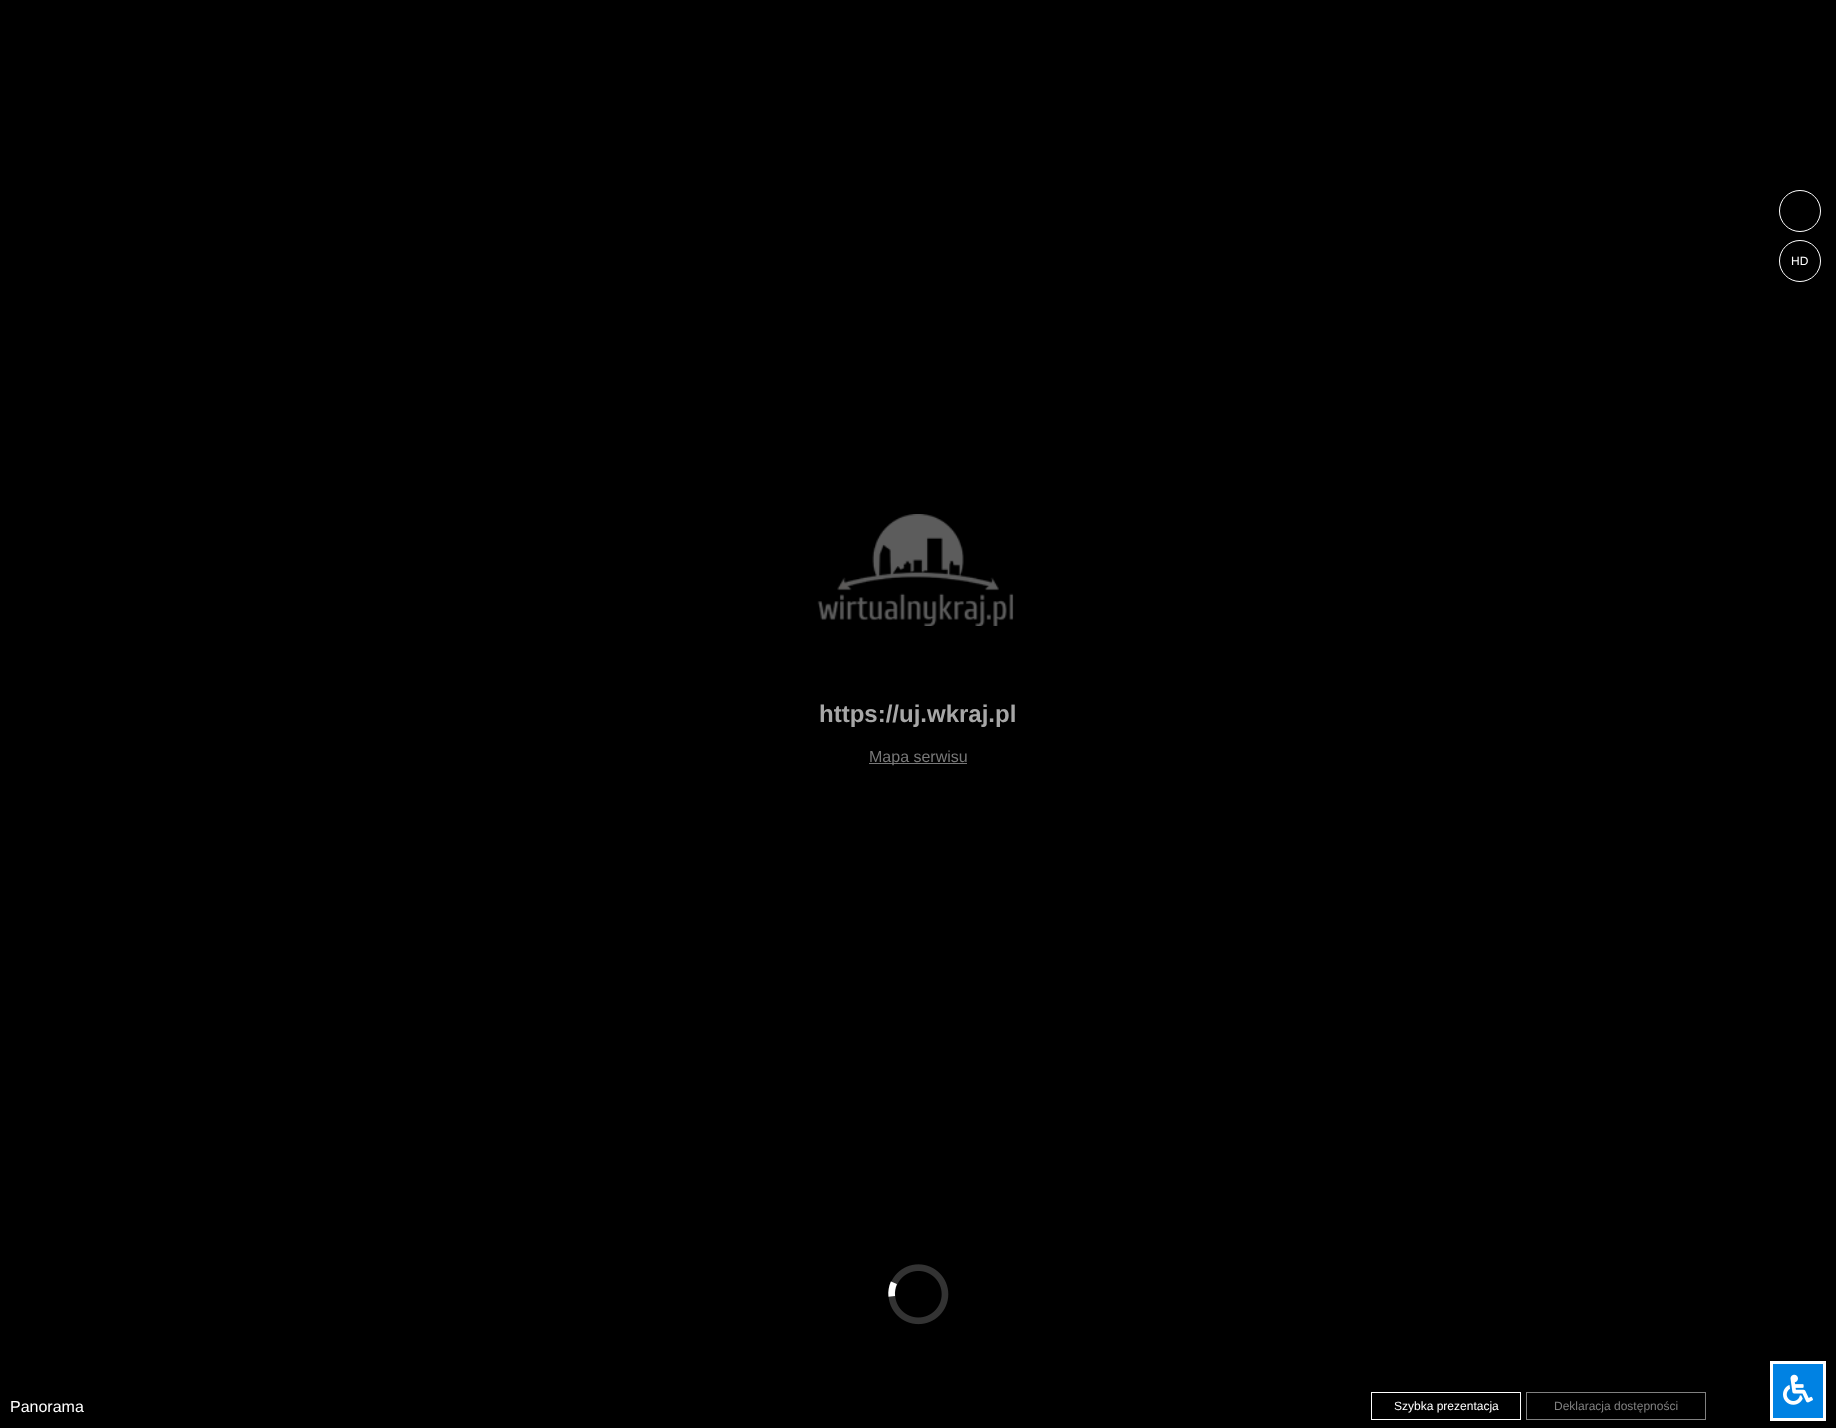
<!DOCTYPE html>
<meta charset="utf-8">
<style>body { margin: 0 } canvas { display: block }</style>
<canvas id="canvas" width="1836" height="1428"></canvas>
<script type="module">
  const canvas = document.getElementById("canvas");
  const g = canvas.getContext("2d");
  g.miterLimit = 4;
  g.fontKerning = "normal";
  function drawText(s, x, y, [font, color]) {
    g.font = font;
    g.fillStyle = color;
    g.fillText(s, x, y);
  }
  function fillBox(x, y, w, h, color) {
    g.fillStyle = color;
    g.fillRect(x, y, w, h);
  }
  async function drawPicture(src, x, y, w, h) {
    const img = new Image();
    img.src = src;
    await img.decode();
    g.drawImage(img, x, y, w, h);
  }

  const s1 = ["12px Liberation Sans", "#FFFFFF"];
  const s2 = ["16px Liberation Sans", "#FFFFFF"];
  const s3 = ["12px Liberation Sans", "#808080"];
  const s4 = ["bold 24px Liberation Sans", "#A7A7A7"];
  const s5 = ["16px Liberation Sans", "#787878"];

  fillBox(0, 0, 1836, 1428, "#000000");
  g.beginPath();
  g.arc(1800, 211, 20.5, 0, Math.PI * 2);
  g.strokeStyle = "#FFFFFF";
  g.stroke();
  g.beginPath();
  g.arc(1800, 261, 20.5, 0, Math.PI * 2);
  g.stroke();
  drawText("HD", 1791, 265, s1);
  drawText("Panorama", 10, 1412, s2);
  g.strokeRect(1371.5, 1392.5, 149, 27);
  drawText("Szybka prezentacja", 1394, 1410, s1);
  g.strokeStyle = "#808080";
  g.strokeRect(1526.5, 1392.5, 179, 27);
  drawText("Deklaracja dostępności", 1554, 1410, s3);
  await drawPicture("pic1.png", 817, 514, 197, 112);
  drawText("https://uj.wkraj.pl", 819, 722, s4);
  fillBox(869, 763, 98, 1, "#787878");
  drawText("Mapa serwisu", 869, 762, s5);
  await drawPicture("pic2.png", 888, 1264, 61, 61);
  g.fillStyle = "#0082E3";
  g.beginPath();
  g.rect(1771.5, 1362.5, 53, 57);
  g.fill();
  g.strokeStyle = "#FFFFFF";
  g.lineWidth = 3;
  g.stroke();
  await drawPicture("pic3.png", 1783, 1374, 30, 31);
</script>
